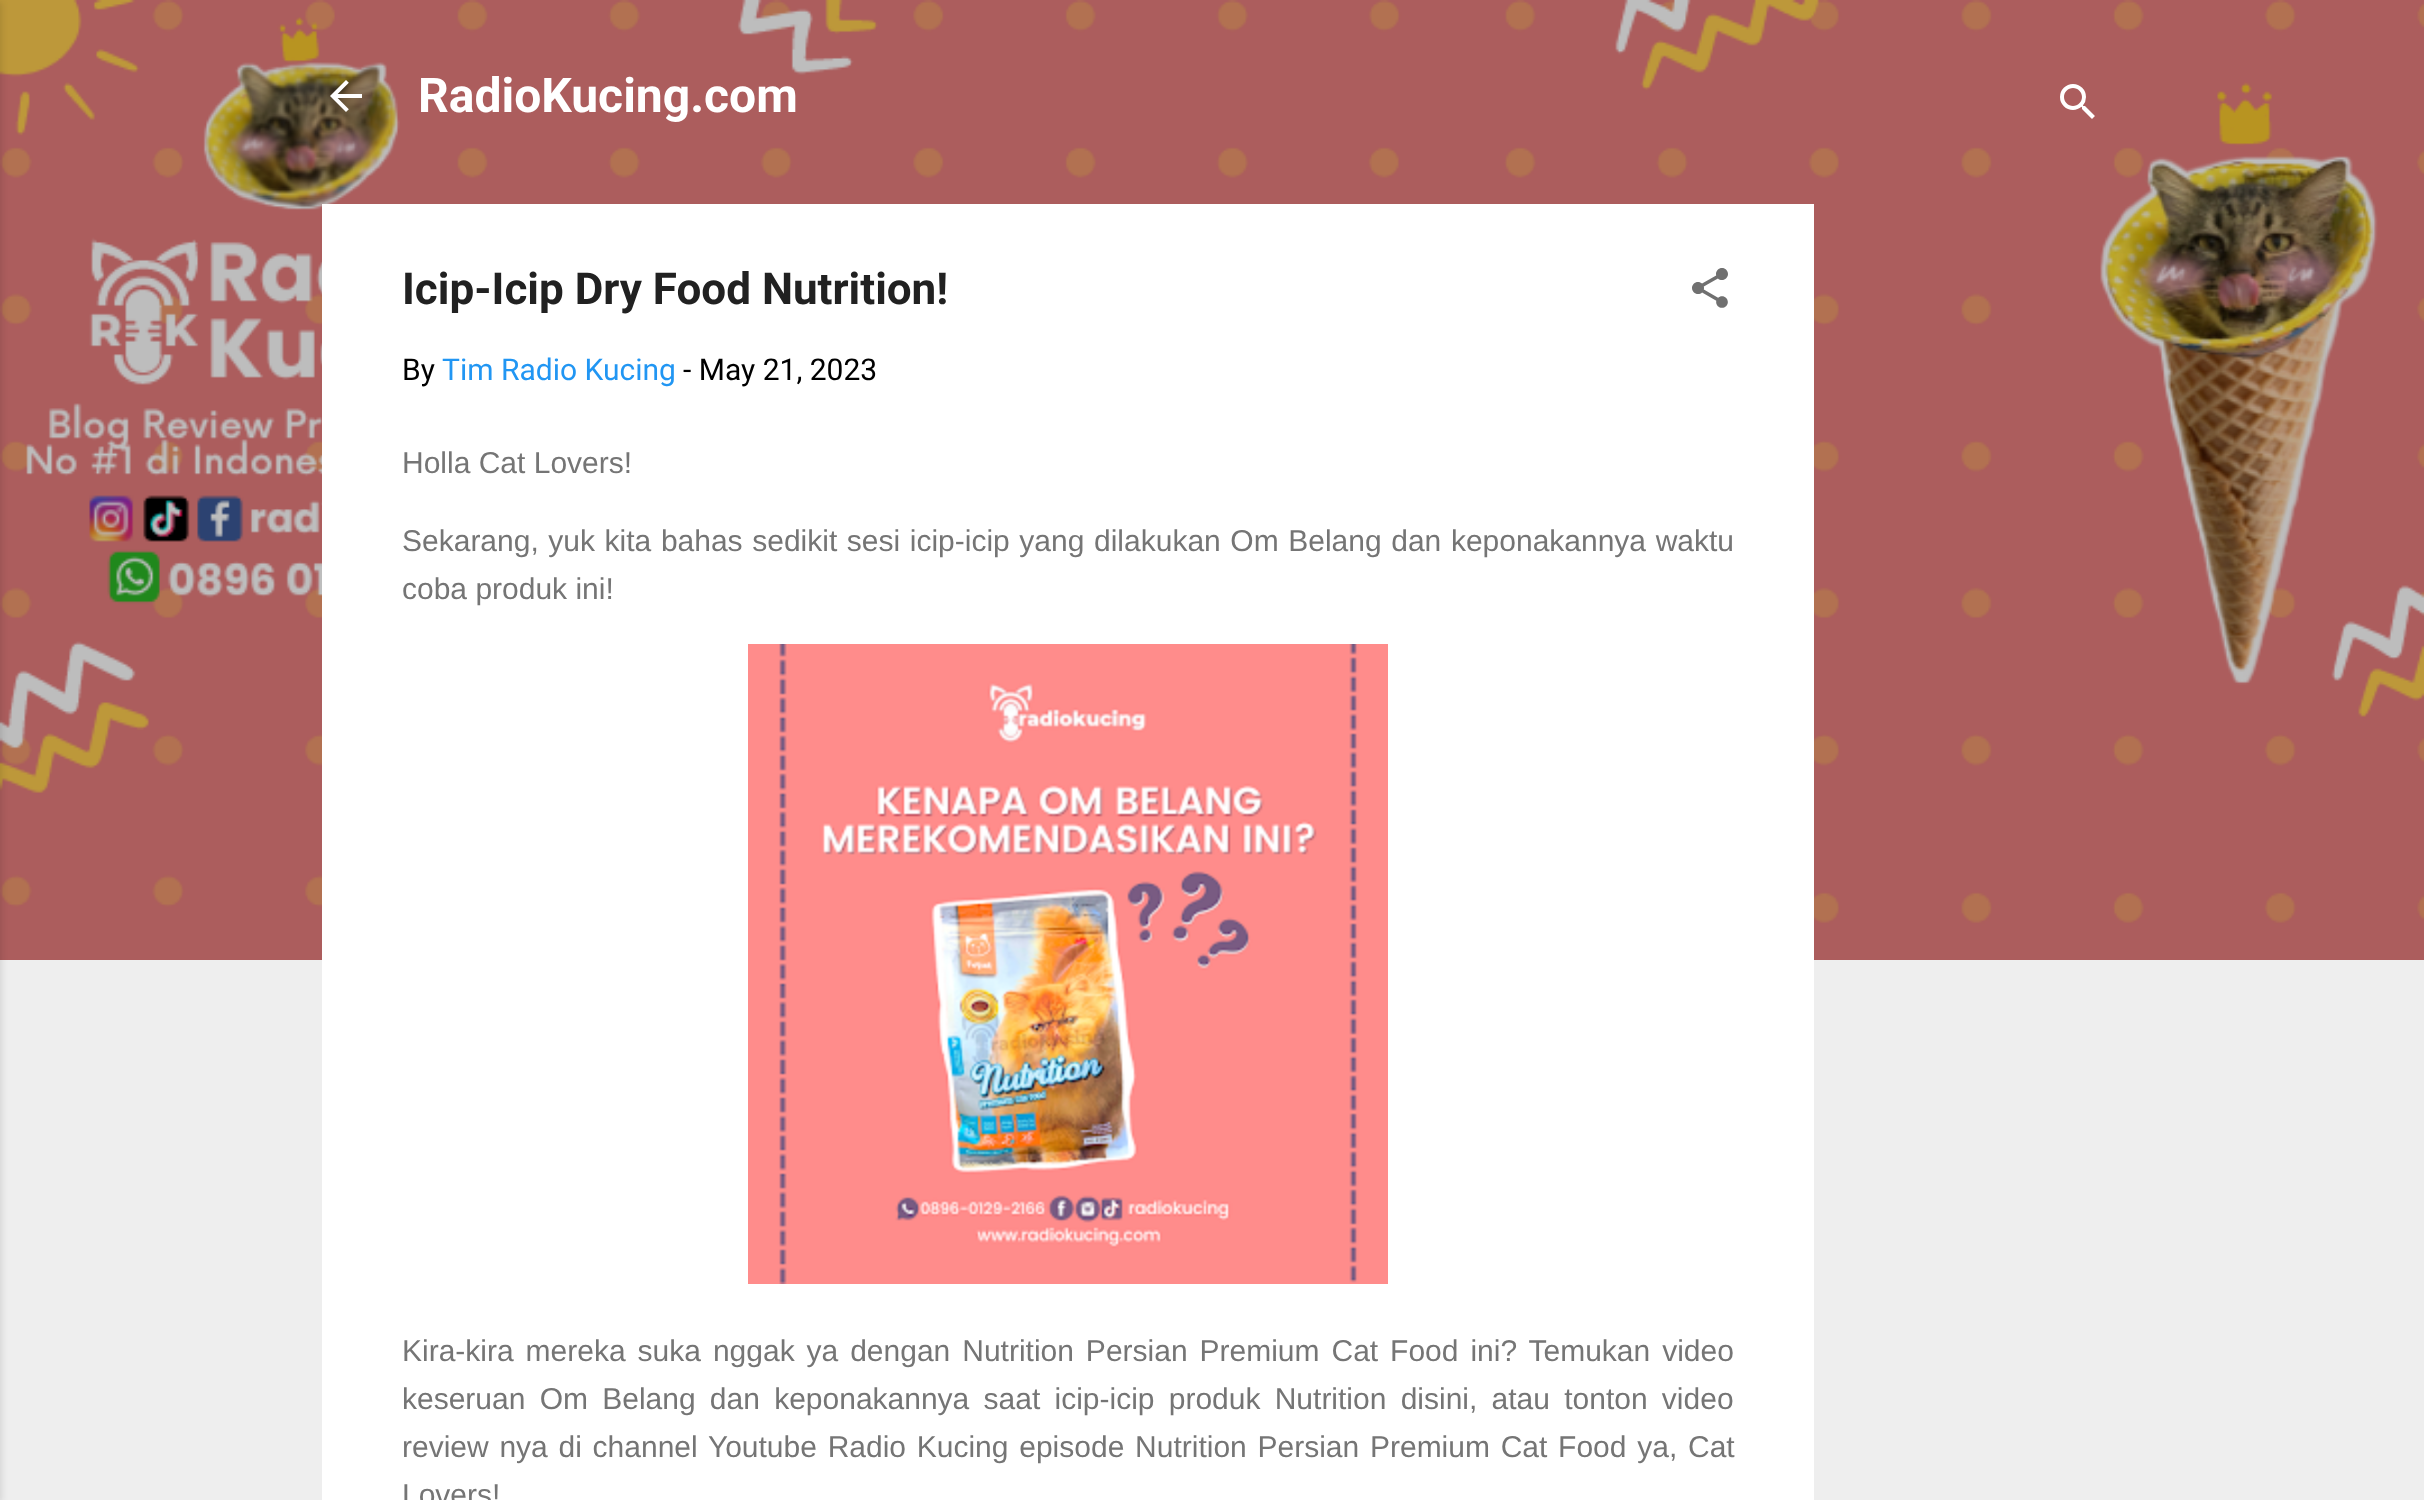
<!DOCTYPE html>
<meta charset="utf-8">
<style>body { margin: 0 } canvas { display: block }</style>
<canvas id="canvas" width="2424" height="1500"></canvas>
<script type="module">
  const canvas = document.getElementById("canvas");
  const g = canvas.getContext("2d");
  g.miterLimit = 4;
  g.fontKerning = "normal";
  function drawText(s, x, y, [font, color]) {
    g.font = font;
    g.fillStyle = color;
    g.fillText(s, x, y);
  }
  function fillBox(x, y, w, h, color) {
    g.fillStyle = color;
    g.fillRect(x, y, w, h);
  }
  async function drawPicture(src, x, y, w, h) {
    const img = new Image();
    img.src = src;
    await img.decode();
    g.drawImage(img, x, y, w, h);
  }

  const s1 = ["bold 48px Roboto", "#FFFFFF"];
  const s2 = ["bold 44px Roboto", "#212121"];
  const s3 = ["30px Roboto", "#000000"];
  const s4 = ["30px Roboto", "#2196F3"];
  const s5 = ["30px Liberation Sans", "#757575"];

  fillBox(0, 0, 2424, 1500, "#EEEEEE");
  await drawPicture("pic1.png", 0, 0, 2424, 960);
  g.fillStyle = "rgba(0, 0, 0, 0.1)";
  g.filter = "blur(3px)";
  g.beginPath();
  g.rect(-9, 2, 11, 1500);
  g.fill();
  g.filter = "none";
  await drawPicture("pic2.png", 330, 80, 32, 32);
  drawText("RadioKucing.com", 418, 112, s1);
  await drawPicture("pic3.png", 2060, 84, 35, 35);
  fillBox(322, 204, 1492, 1296, "#FFFFFF");
  drawText("Icip-Icip Dry Food Nutrition!", 402, 304, s2);
  await drawPicture("pic4.png", 1692, 268, 36, 40);
  drawText("By", 402, 380, s3);
  drawText("Tim Radio Kucing", 442, 380, s4);
  drawText("- May 21, 2023", 683, 380, s3);
  drawText("Holla Cat Lovers!", 402, 473, s5);
  g.wordSpacing = "1.25px";
  drawText("Sekarang, yuk kita bahas sedikit sesi icip-icip yang dilakukan Om Belang dan keponakannya waktu", 402, 551, s5);
  g.wordSpacing = "0px";
  drawText("coba produk ini!", 402, 599, s5);
  await drawPicture("pic5.png", 748, 644, 640, 640);
  g.wordSpacing = "3.6px";
  drawText("Kira-kira mereka suka nggak ya dengan Nutrition Persian Premium Cat Food ini? Temukan video", 402, 1361, s5);
  g.wordSpacing = "5.9px";
  drawText("keseruan Om Belang dan keponakannya saat icip-icip produk Nutrition disini, atau tonton video", 402, 1409, s5);
  g.wordSpacing = "2.4px";
  drawText("review nya di channel Youtube Radio Kucing episode Nutrition Persian Premium Cat Food ya, Cat", 402, 1457, s5);
  g.wordSpacing = "0px";
  drawText("Lovers!", 402, 1505, s5);
</script>
